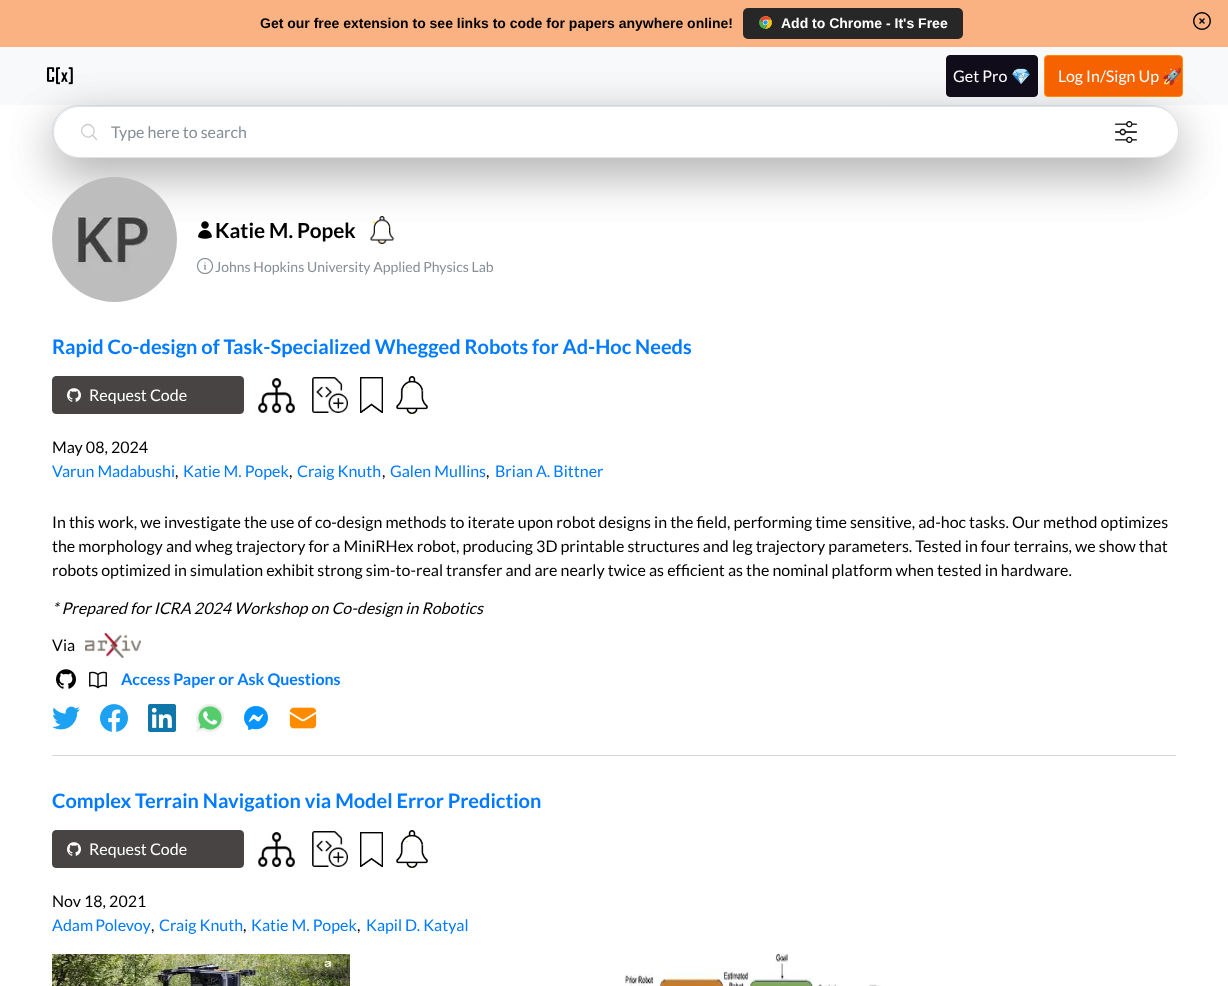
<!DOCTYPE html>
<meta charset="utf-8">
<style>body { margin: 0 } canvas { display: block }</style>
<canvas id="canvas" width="1228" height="986"></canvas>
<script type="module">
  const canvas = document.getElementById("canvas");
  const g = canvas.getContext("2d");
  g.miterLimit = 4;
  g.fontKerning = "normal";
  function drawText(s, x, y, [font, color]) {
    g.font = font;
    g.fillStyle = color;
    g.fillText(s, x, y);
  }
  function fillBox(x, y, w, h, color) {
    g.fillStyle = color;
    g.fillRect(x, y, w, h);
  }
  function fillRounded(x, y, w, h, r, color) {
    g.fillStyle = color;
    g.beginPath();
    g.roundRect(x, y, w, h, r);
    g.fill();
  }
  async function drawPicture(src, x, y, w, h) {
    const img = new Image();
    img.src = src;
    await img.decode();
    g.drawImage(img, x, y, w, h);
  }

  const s1 = ["bold 14px Liberation Sans", "#000000"];
  const s2 = ["bold 14px Liberation Sans", "#FFFFFF"];
  const s3 = ["16px Lato", "#FFFFFF"];
  const s4 = ["16px Noto Color Emoji", "#FFFFFF"];
  const s5 = ["16px Lato", "#868E96"];
  const s6 = ["bold 20.75px Lato", "#000000"];
  const s7 = ["14px Lato", "#868E96"];
  const s8 = ["bold 20px Lato", "#007BFF"];
  const s9 = ["16px Lato", "#000000"];
  const s10 = ["16px Lato", "#007BFF"];
  const s11 = ["italic 16px Lato", "#000000"];
  const s12 = ["bold 16px Lato", "#007BFF"];

  fillBox(0, 0, 1228, 986, "#FFFFFF");
  fillBox(0, 0, 1228, 47, "#FBB282");
  drawText("Get our free extension to see links to code for papers anywhere online!", 260, 28, s1);
  fillRounded(743, 8, 220, 31, 5, "#272727");
  await drawPicture("pic1.png", 759, 16, 13, 13);
  drawText("Add to Chrome - It's Free", 781, 28, s2);
  await drawPicture("pic2.png", 1193, 12, 18, 18);
  fillBox(0, 47, 1228, 58, "#F8F9FA");
  g.fillStyle = "rgba(0, 0, 0, 0.18)";
  g.filter = "blur(24px)";
  g.beginPath();
  g.roundRect(52, 121, 1126, 52, 26);
  g.fill();
  g.filter = "none";
  g.fillStyle = "#FFFFFF";
  g.beginPath();
  g.roundRect(52.5, 105.5, 1125, 51, 25.5);
  g.fill();
  g.strokeStyle = "#DEE2E6";
  g.stroke();
  g.fillStyle = "rgba(0, 0, 0, 0.18)";
  g.filter = "blur(24px)";
  g.beginPath();
  g.roundRect(53, 122, 1126, 52, 26);
  g.fill();
  g.filter = "none";
  await drawPicture("pic3.png", 46, 67, 27, 18);
  g.fillStyle = "#110C1A";
  g.beginPath();
  g.roundRect(946.5, 55.5, 91, 41, 3.5);
  g.fill();
  g.strokeStyle = "#110C1A";
  g.stroke();
  drawText("Get Pro", 953, 82, s3);
  drawText("💎", 1011, 82, s4);
  g.fillStyle = "#F76200";
  g.beginPath();
  g.roundRect(1044.5, 55.5, 138, 41, 3.5);
  g.fill();
  g.strokeStyle = "#FF8C00";
  g.stroke();
  drawText("Log In/Sign Up", 1058, 82, s3);
  drawText("🚀", 1162, 82, s4);
  g.beginPath();
  g.roundRect(53.5, 106.5, 1125, 51, 25.5);
  g.fill();
  g.strokeStyle = "#DEE2E6";
  g.stroke();
  g.beginPath();
  g.moveTo(96.5, 139.5);
  g.lineTo(92.5, 135);
  g.moveTo(92.5, 135);
  g.bezierCurveTo(98, 129.5, 89, 120.5, 83.5, 126.5);
  g.bezierCurveTo(77.5, 132, 86.5, 141, 92.5, 135);
  g.closePath();
  g.strokeStyle = "#CCCCCC";
  g.lineWidth = 1.3;
  g.lineCap = "round";
  g.lineJoin = "round";
  g.stroke();
  drawText("Type here to search", 111, 138, s5);
  await drawPicture("pic4.png", 1115, 121, 22, 22);
  await drawPicture("pic5.png", 52, 177, 125, 125);
  await drawPicture("pic6.png", 198, 221, 14, 18);
  drawText("Katie M. Popek", 215, 238, s6);
  await drawPicture("pic7.png", 369, 216, 26, 28);
  await drawPicture("pic8.png", 373, 221, 17, 22);
  await drawPicture("pic9.png", 196, 257, 18, 18);
  drawText("Johns Hopkins University Applied Physics Lab", 215, 272, s7);
  drawText("Rapid Co-design of Task-Specialized Whegged Robots for Ad-Hoc Needs", 52, 354, s8);
  g.fillStyle = "#484444";
  g.beginPath();
  g.roundRect(52.5, 376.5, 191, 37, 3.5);
  g.fill();
  g.strokeStyle = "#484444";
  g.lineWidth = 1;
  g.lineJoin = "miter";
  g.stroke();
  await drawPicture("pic10.png", 67, 388, 14, 14);
  drawText("Request Code", 89, 401, s3);
  await drawPicture("pic11.png", 258, 378, 37, 35);
  await drawPicture("pic12.png", 312, 377, 36, 36);
  await drawPicture("pic13.png", 360, 377, 23, 36);
  await drawPicture("pic14.png", 396, 376, 32, 38);
  await drawPicture("pic15.png", 405, 386, 18, 28);
  drawText("May 08, 2024", 52, 453, s9);
  drawText("Varun Madabushi", 52, 477, s10);
  drawText(",", 175, 477, s9);
  drawText("Katie M. Popek", 183, 477, s10);
  drawText(",", 289, 477, s9);
  drawText("Craig Knuth", 297, 477, s10);
  drawText(",", 382, 477, s9);
  drawText("Galen Mullins", 390, 477, s10);
  drawText(",", 486, 477, s9);
  drawText("Brian A. Bittner", 495, 477, s10);
  drawText("In this work, we investigate the use of co-design methods to iterate upon robot designs in the field, performing time sensitive, ad-hoc tasks. Our method optimizes", 52, 528, s9);
  drawText("the morphology and wheg trajectory for a MiniRHex robot, producing 3D printable structures and leg trajectory parameters. Tested in four terrains, we show that", 52, 552, s9);
  drawText("robots optimized in simulation exhibit strong sim-to-real transfer and are nearly twice as efficient as the nominal platform when tested in hardware.", 52, 576, s9);
  drawText("* Prepared for ICRA 2024 Workshop on Co-design in Robotics", 52, 614, s11);
  drawText("Via", 52, 651, s9);
  await drawPicture("pic16.png", 85, 633, 56, 25);
  await drawPicture("pic17.png", 56, 669, 20, 20);
  await drawPicture("pic18.png", 89, 671, 18, 18);
  drawText("Access Paper or Ask Questions", 121, 685, s12);
  await drawPicture("pic19.png", 52, 706, 28, 24);
  await drawPicture("pic20.png", 100, 704, 28, 28);
  await drawPicture("pic21.png", 148, 704, 28, 28);
  await drawPicture("pic22.png", 196, 704, 28, 28);
  await drawPicture("pic23.png", 244, 706, 24, 24);
  await drawPicture("pic24.png", 289, 707, 28, 22);
  fillBox(52, 755, 1124, 1, "#DED6D6");
  drawText("Complex Terrain Navigation via Model Error Prediction", 52, 808, s8);
  g.fillStyle = "#484444";
  g.beginPath();
  g.roundRect(52.5, 830.5, 191, 37, 3.5);
  g.fill();
  g.stroke();
  await drawPicture("pic10.png", 67, 842, 14, 14);
  drawText("Request Code", 89, 855, s3);
  await drawPicture("pic11.png", 258, 832, 37, 35);
  await drawPicture("pic12.png", 312, 831, 36, 36);
  await drawPicture("pic25.png", 360, 832, 23, 35);
  await drawPicture("pic14.png", 396, 830, 32, 38);
  await drawPicture("pic15.png", 405, 840, 18, 28);
  drawText("Nov 18, 2021", 52, 907, s9);
  g.wordSpacing = "-1px";
  drawText("Adam Polevoy", 52, 931, s10);
  g.wordSpacing = "0px";
  drawText(",", 151, 931, s9);
  drawText("Craig Knuth", 159, 931, s10);
  drawText(",", 243, 931, s9);
  drawText("Katie M. Popek", 251, 931, s10);
  drawText(",", 357, 931, s9);
  drawText("Kapil D. Katyal", 366, 931, s10);
  await drawPicture("pic26.png", 52, 954, 298, 32);
  await drawPicture("pic27.png", 624, 954, 257, 32);
</script>
